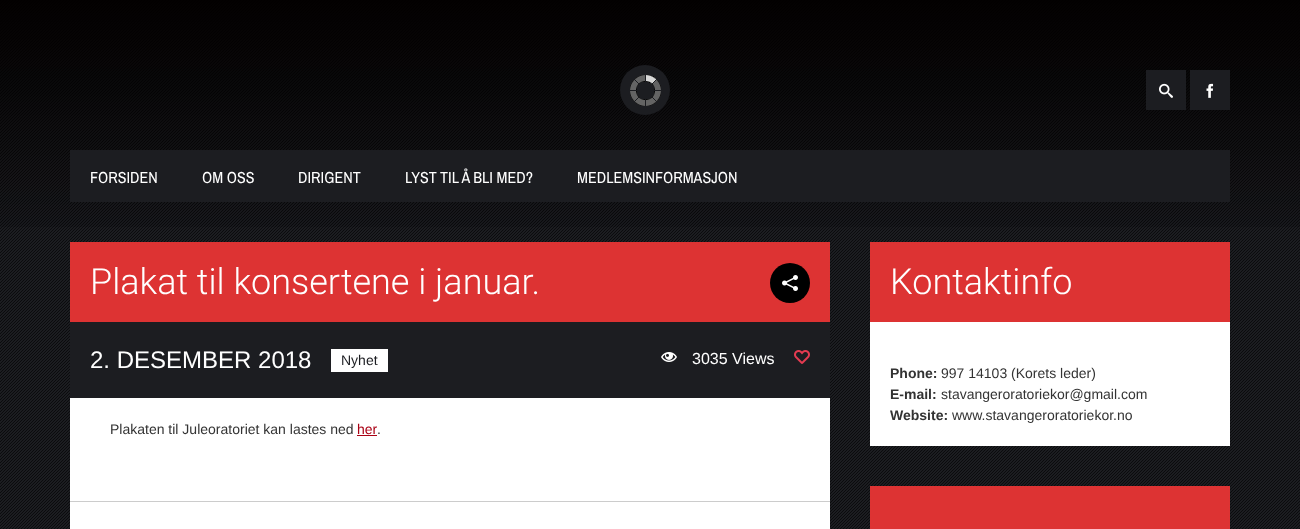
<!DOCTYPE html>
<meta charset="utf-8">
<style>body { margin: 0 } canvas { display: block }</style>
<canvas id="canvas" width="1300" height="529"></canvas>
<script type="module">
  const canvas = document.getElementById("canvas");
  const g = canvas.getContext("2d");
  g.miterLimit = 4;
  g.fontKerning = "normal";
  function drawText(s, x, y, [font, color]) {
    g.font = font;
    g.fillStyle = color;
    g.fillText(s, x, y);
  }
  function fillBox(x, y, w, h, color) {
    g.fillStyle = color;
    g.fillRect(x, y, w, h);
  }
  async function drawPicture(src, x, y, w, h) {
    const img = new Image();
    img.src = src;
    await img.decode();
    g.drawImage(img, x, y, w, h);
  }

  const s1 = ["16px Archivo Narrow", "#FFFFFF"];
  const s2 = ["300 36px Roboto", "#FFFFFF"];
  const s3 = ["24px Arimo", "#FFFFFF"];
  const s4 = ["14px Arimo", "#1C1D21"];
  const s5 = ["16px Arimo", "#FFFFFF"];
  const s6 = ["14px Arimo", "#333333"];
  const s7 = ["14px Arimo", "#AA0114"];
  const s8 = ["bold 14px Arimo", "#333333"];

  fillBox(0, 0, 1300, 529, "#1C1D21");
  await drawPicture("pic2.png", 0, 0, 1300, 529);
  await drawPicture("pic3.png", 0, 0, 1300, 227);
  g.beginPath();
  g.arc(645, 90, 25, 0, Math.PI * 2);
  g.fill();
  await drawPicture("pic1.png", 630, 75, 31, 31);
  fillBox(1146, 70, 40, 40, "#1C1D21");
  await drawPicture("pic4.png", 1159, 83, 14, 15);
  fillBox(1190, 70, 40, 40, "#1C1D21");
  await drawPicture("pic5.png", 1206, 83, 8, 15);
  fillBox(70, 150, 1160, 52, "#1C1D21");
  drawText("FORSIDEN", 90, 183, s1);
  drawText("OM OSS", 202, 183, s1);
  drawText("DIRIGENT", 298, 183, s1);
  drawText("LYST TIL Å BLI MED?", 405, 183, s1);
  drawText("MEDLEMSINFORMASJON", 577, 183, s1);
  fillBox(70, 242, 760, 80, "#DD3333");
  drawText("Plakat til konsertene i januar.", 90, 294, s2);
  g.fillStyle = "#000000";
  g.beginPath();
  g.arc(790, 283, 20, 0, Math.PI * 2);
  g.fill();
  await drawPicture("pic6.png", 782, 275, 16, 16);
  fillBox(70, 322, 760, 76, "#1C1D21");
  drawText("2. DESEMBER 2018", 90, 368, s3);
  fillBox(331, 349, 57, 23, "#FFFFFF");
  drawText("Nyhet", 341, 365, s4);
  await drawPicture("pic7.png", 661, 352, 16, 10);
  drawText("3035 Views", 692, 364, s5);
  await drawPicture("pic8.png", 794, 350, 16, 14);
  fillBox(70, 398, 760, 131, "#FFFFFF");
  fillBox(70, 501, 760, 1, "#CCCCCC");
  drawText("Plakaten til Juleoratoriet kan lastes ned", 110, 434, s6);
  drawText("her", 357, 434, s7);
  fillBox(357, 435, 20, 1, "#AA0114");
  drawText(".", 377, 434, s6);
  fillBox(870, 242, 360, 80, "#DD3333");
  drawText("Kontaktinfo", 890, 294, s2);
  fillBox(870, 322, 360, 124, "#FFFFFF");
  drawText("Phone:", 890, 378, s8);
  drawText("997 14103 (Korets leder)", 941, 378, s6);
  drawText("E-mail:", 890, 399, s8);
  drawText("stavangeroratoriekor@gmail.com", 941, 399, s6);
  drawText("Website:", 890, 420, s8);
  drawText("www.stavangeroratoriekor.no", 952, 420, s6);
  fillBox(870, 486, 360, 43, "#DD3333");
</script>
